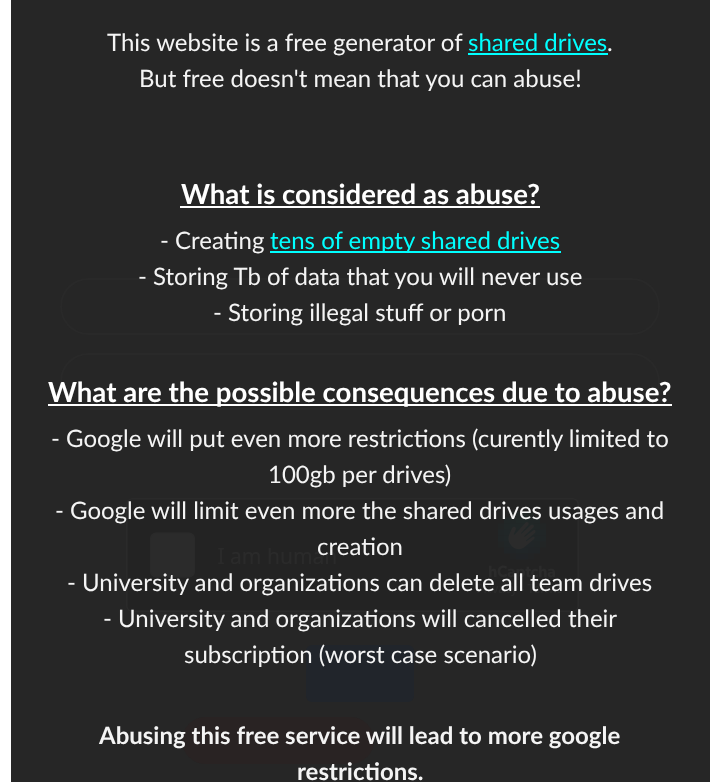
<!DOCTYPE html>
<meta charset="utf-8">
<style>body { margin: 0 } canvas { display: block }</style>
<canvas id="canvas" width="720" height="782"></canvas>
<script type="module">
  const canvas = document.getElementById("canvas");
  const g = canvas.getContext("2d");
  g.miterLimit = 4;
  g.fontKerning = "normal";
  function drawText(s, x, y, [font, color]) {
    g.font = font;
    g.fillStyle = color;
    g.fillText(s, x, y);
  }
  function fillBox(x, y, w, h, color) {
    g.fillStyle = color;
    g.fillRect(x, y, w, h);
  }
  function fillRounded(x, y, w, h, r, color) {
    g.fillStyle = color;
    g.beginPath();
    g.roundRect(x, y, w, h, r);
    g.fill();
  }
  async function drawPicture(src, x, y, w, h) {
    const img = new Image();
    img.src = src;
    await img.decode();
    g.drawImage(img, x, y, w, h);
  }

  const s1 = ["24px Lato", "#F4F4F4"];
  const s2 = ["24px Lato", "#00FFFF"];
  const s3 = ["bold 27.6px Lato", "#FFFFFF"];
  const s4 = ["bold 24px Lato", "#F4F4F4"];

  fillBox(0, 0, 720, 782, "#FFFFFF");
  fillBox(11, 0, 699, 782, "#262626");
  g.beginPath();
  g.roundRect(61, 279, 598, 55, 27.5);
  g.strokeStyle = "#292929";
  g.lineWidth = 2;
  g.stroke();
  g.beginPath();
  g.roundRect(61, 354, 598, 55, 27.5);
  g.stroke();
  await drawPicture("pic1.png", 126, 498, 453, 114);
  fillRounded(306, 645, 108, 57, 6, "#21252B");
  fillRounded(182, 717, 192, 47, 23.5, "#292323");
  drawText("This website is a free generator of", 107, 51, s1);
  drawText("shared drives", 468, 51, s2);
  fillBox(468, 53, 140, 2, "#00FFFF");
  drawText(".", 607, 51, s1);
  drawText("But free doesn't mean that you can abuse!", 139, 87, s1);
  drawText("What is considered as abuse?", 181, 204, s3);
  fillBox(180, 206, 360, 2, "#FFFFFF");
  drawText("- Creating", 160, 249, s1);
  fillBox(270, 251, 291, 2, "#00FFFF");
  drawText("tens of empty shared drives", 270, 249, s2);
  drawText("- Storing Tb of data that you will never use", 138, 285, s1);
  drawText("- Storing illegal stuff or porn", 213, 321, s1);
  fillBox(48, 404, 624, 2, "#FFFFFF");
  drawText("What are the possible consequences due to abuse?", 48, 402, s3);
  drawText("- Google will put even more restrictions (curently limited to", 51, 447, s1);
  drawText("100gb per drives)", 268, 483, s1);
  drawText("- Google will limit even more the shared drives usages and", 55, 519, s1);
  drawText("creation", 317, 555, s1);
  drawText("- University and organizations can delete all team drives", 67, 591, s1);
  drawText("- University and organizations will cancelled their", 103, 627, s1);
  drawText("subscription (worst case scenario)", 184, 663, s1);
  drawText("Abusing this free service will lead to more google", 99, 744, s4);
  drawText("restrictions.", 297, 780, s4);
</script>
